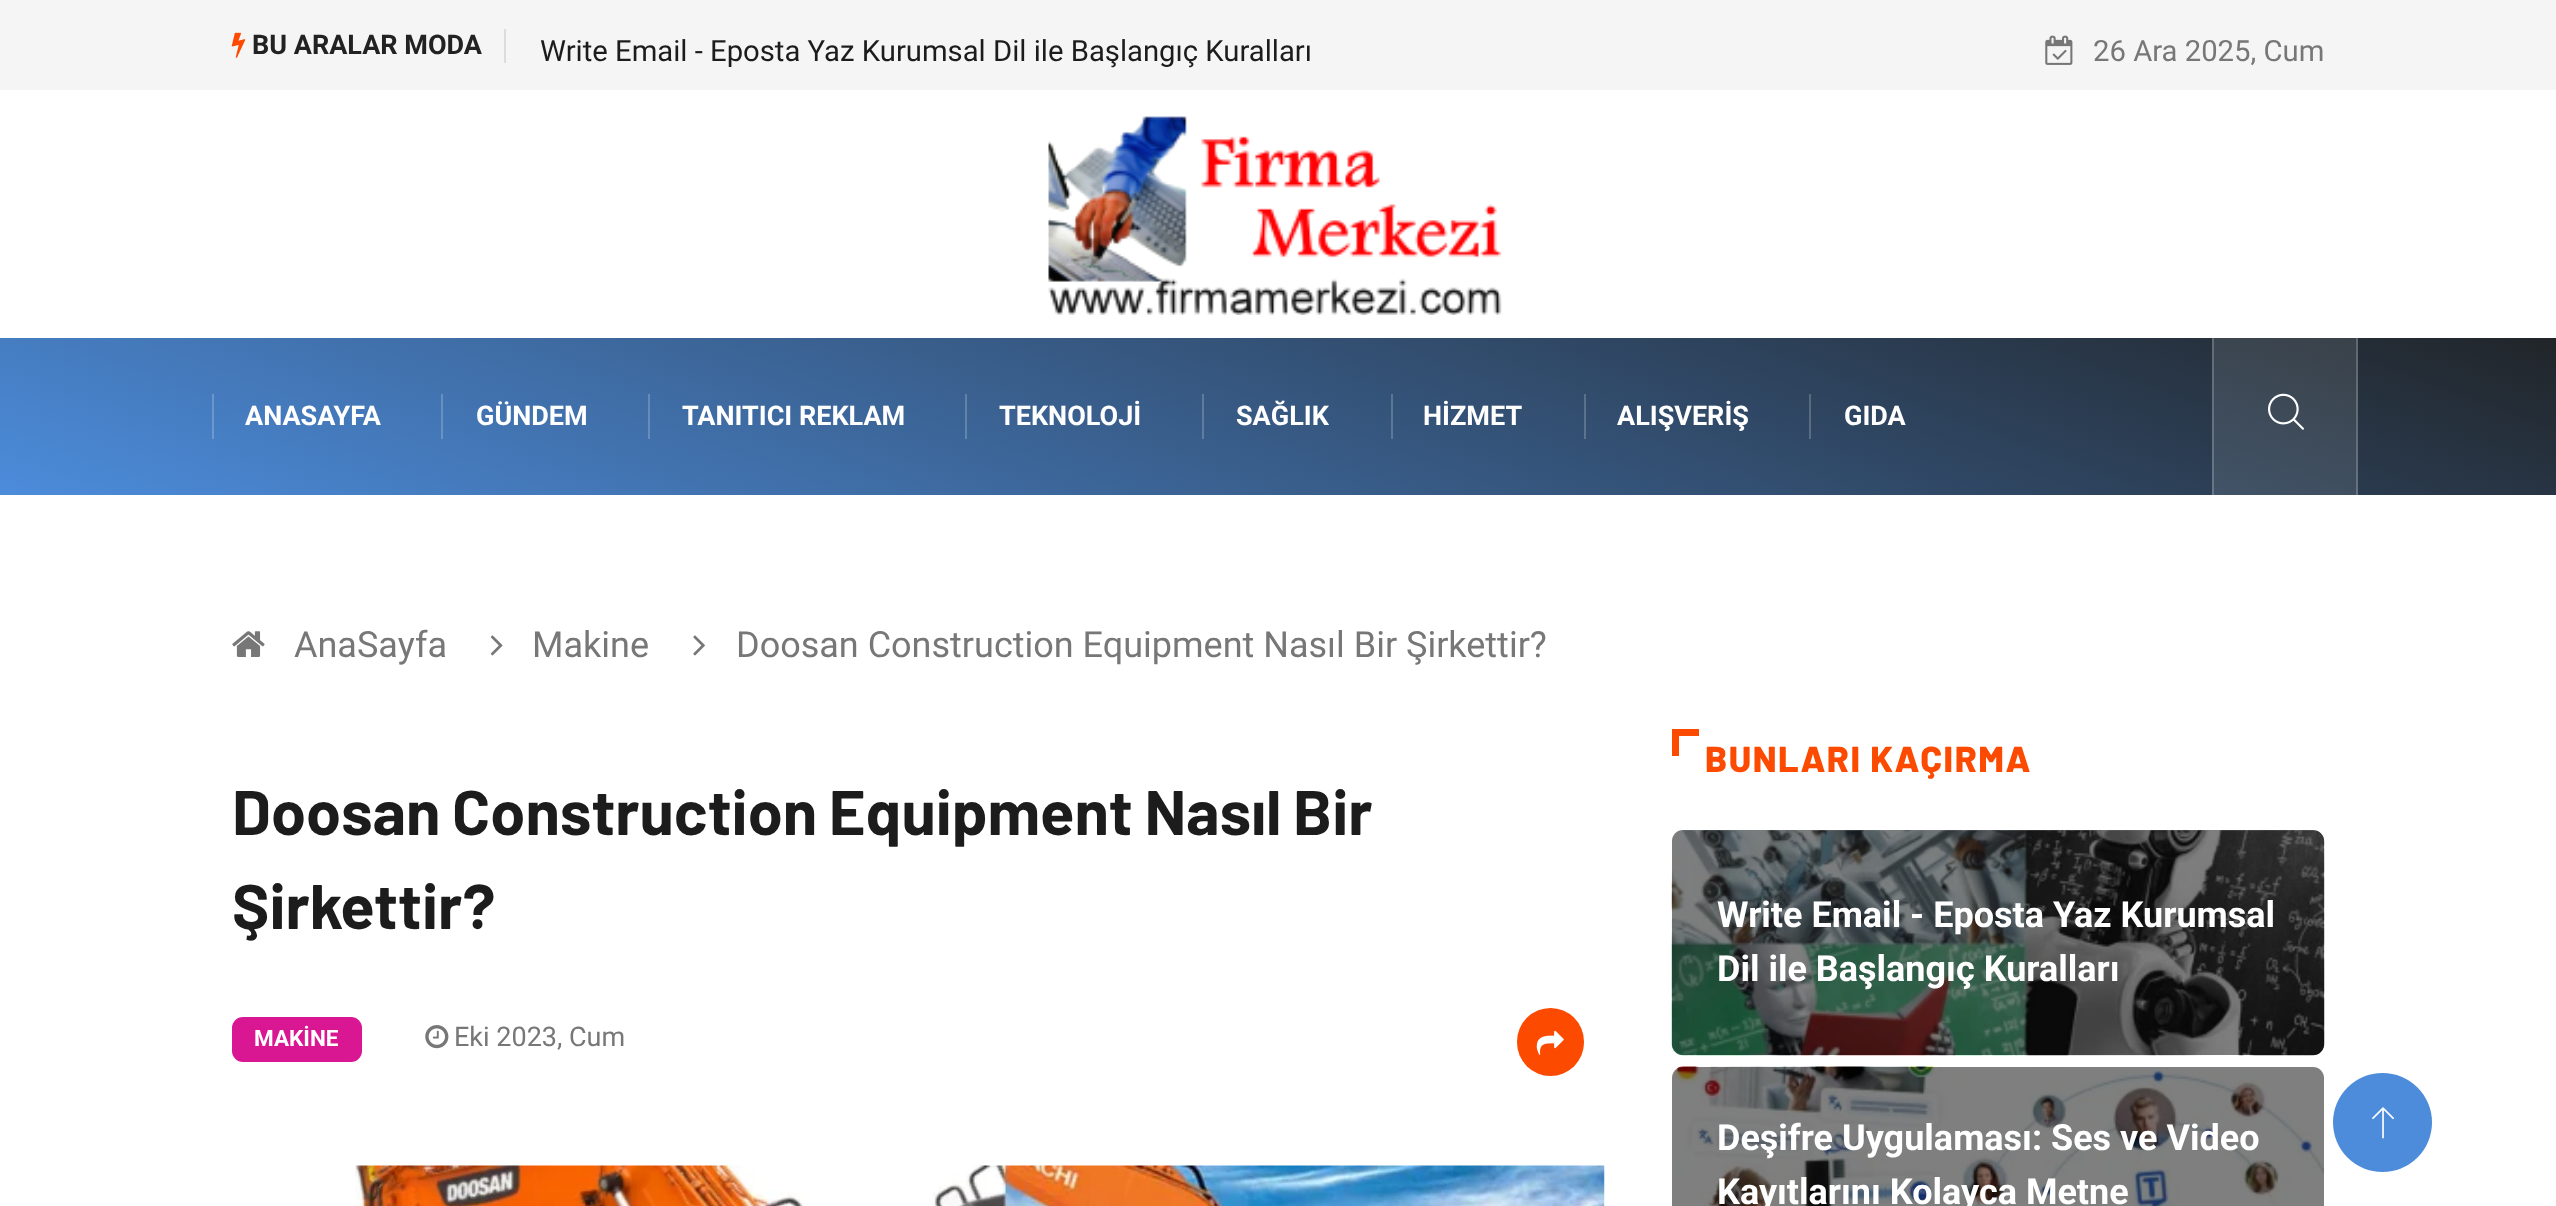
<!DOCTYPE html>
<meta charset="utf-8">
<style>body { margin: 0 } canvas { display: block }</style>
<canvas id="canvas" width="2556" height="1206"></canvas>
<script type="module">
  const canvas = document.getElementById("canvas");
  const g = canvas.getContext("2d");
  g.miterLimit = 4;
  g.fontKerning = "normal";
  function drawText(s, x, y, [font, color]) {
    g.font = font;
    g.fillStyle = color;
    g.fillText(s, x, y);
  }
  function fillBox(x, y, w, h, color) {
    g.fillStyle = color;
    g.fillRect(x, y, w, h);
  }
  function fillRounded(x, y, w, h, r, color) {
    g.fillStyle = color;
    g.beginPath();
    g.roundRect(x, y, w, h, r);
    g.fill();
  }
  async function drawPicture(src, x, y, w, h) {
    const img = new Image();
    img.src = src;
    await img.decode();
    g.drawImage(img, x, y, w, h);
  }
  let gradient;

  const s1 = ["bold 27px Roboto", "#222222"];
  const s2 = ["29.25px Roboto", "#1C1C1C"];
  const s3 = ["29.25px Roboto", "#777777"];
  const s4 = ["bold 27px Roboto", "#FFFFFF"];
  const s5 = ["36px Roboto", "#777777"];
  const s6 = ["bold 63px Barlow", "#1C1C1C"];
  const s7 = ["bold 22.5px Roboto", "#FFFFFF"];
  const s8 = ["27px Roboto", "#777777"];
  const s9 = ["800 36px Barlow", "#FC4A00"];
  const s10 = ["bold 36px Roboto", "#FFFFFF"];

  fillBox(0, 0, 2556, 1206, "#FFFFFF");
  fillBox(0, 0, 2556, 90, "#F5F5F5");
  fillBox(504, 29, 2, 34, "#DEDBDB");
  await drawPicture("pic1.png", 231, 32, 15, 26);
  drawText("BU ARALAR MODA", 252, 54, s1);
  drawText("Write Email - Eposta Yaz Kurumsal Dil ile Başlangıç Kuralları", 540, 61, s2);
  await drawPicture("pic2.png", 2045, 35, 28, 30);
  drawText("26 Ara 2025, Cum", 2093, 61, s3);
  await drawPicture("pic3.png", 1048, 116, 454, 199);
  gradient = g.createLinearGradient(1103, 897, 1453, -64);
  gradient.addColorStop(0, "#4C8CDB");
  gradient.addColorStop(1, "#212529");
  g.fillStyle = gradient;
  g.fillRect(0, 338, 2556, 157);
  gradient = g.createLinearGradient(1103, 897, 1453, -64);
  gradient.addColorStop(0, "#70A3E2");
  gradient.addColorStop(1, "#4D5154");
  g.fillStyle = gradient;
  g.fillRect(1809, 394, 2, 45);
  g.fillRect(1584, 394, 2, 45);
  g.fillRect(1391, 394, 2, 45);
  g.fillRect(1202, 394, 2, 45);
  g.fillRect(965, 394, 2, 45);
  g.fillRect(648, 394, 2, 45);
  g.fillRect(441, 394, 2, 45);
  g.fillRect(212, 394, 2, 45);
  gradient = g.createLinearGradient(1103, 897, 1453, -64);
  gradient.addColorStop(0, "#5E98DF");
  gradient.addColorStop(1, "#373B3E");
  g.fillStyle = gradient;
  g.fillRect(2214, 338, 142, 157);
  gradient = g.createLinearGradient(1103, 897, 1453, -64);
  gradient.addColorStop(0, "#7EADE5");
  gradient.addColorStop(1, "#5F6265");
  g.fillStyle = gradient;
  g.fillRect(2212, 338, 2, 157);
  g.fillRect(2356, 338, 2, 157);
  drawText("ANASAYFA", 245, 425, s4);
  drawText("GÜNDEM", 476, 425, s4);
  drawText("TANITICI REKLAM", 682, 425, s4);
  drawText("TEKNOLOJİ", 999, 425, s4);
  drawText("SAĞLIK", 1236, 425, s4);
  drawText("HİZMET", 1423, 425, s4);
  drawText("ALIŞVERİŞ", 1617, 425, s4);
  drawText("GIDA", 1844, 425, s4);
  await drawPicture("pic4.png", 2268, 393, 36, 37);
  await drawPicture("pic5.png", 232, 631, 33, 26);
  drawText("AnaSayfa", 294, 657, s5);
  await drawPicture("pic6.png", 490, 635, 13, 21);
  drawText("Makine", 532, 657, s5);
  await drawPicture("pic7.png", 693, 635, 12, 21);
  drawText("Doosan Construction Equipment Nasıl Bir Şirkettir?", 736, 657, s5);
  g.wordSpacing = "-1px";
  drawText("Doosan Construction Equipment Nasıl Bir", 232, 835, s6);
  g.wordSpacing = "0px";
  drawText("Şirkettir?", 232, 929, s6);
  fillRounded(232, 1017, 130, 45, 11, "#DA1793");
  drawText("MAKİNE", 254, 1046, s7);
  await drawPicture("pic8.png", 425, 1025, 24, 24);
  drawText("Eki 2023, Cum", 454, 1046, s8);
  fillRounded(1517, 1008, 67, 68, 33.5, "#FC4A00");
  await drawPicture("pic9.png", 1536, 1030, 28, 25);
  await drawPicture("pic10.png", 355, 1165, 1250, 41);
  fillBox(1672, 729, 7, 27, "#FC4A00");
  fillBox(1672, 729, 27, 7, "#FC4A00");
  g.letterSpacing = "1.5px";
  drawText("BUNLARI KAÇIRMA", 1705, 772, s9);
  await drawPicture("pic11.png", 1671, 830, 654, 226);
  fillRounded(1672, 830, 652, 225, 11, "rgba(0, 0, 0, 0.5)");
  g.letterSpacing = "0px";
  drawText("Write Email - Eposta Yaz Kurumsal", 1717, 927, s10);
  drawText("Dil ile Başlangıç Kuralları", 1717, 981, s10);
  await drawPicture("pic12.png", 1672, 1066, 653, 140);
  fillRounded(1672, 1067, 652, 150, 11, "rgba(0, 0, 0, 0.5)");
  drawText("Deşifre Uygulaması: Ses ve Video", 1717, 1150, s10);
  drawText("Kayıtlarını Kolayca Metne", 1717, 1204, s10);
  g.fillStyle = "#4C8CDB";
  g.beginPath();
  g.arc(2382.5, 1122.5, 49.5, 0, Math.PI * 2);
  g.fill();
  await drawPicture("pic13.png", 2372, 1107, 22, 32);
</script>
